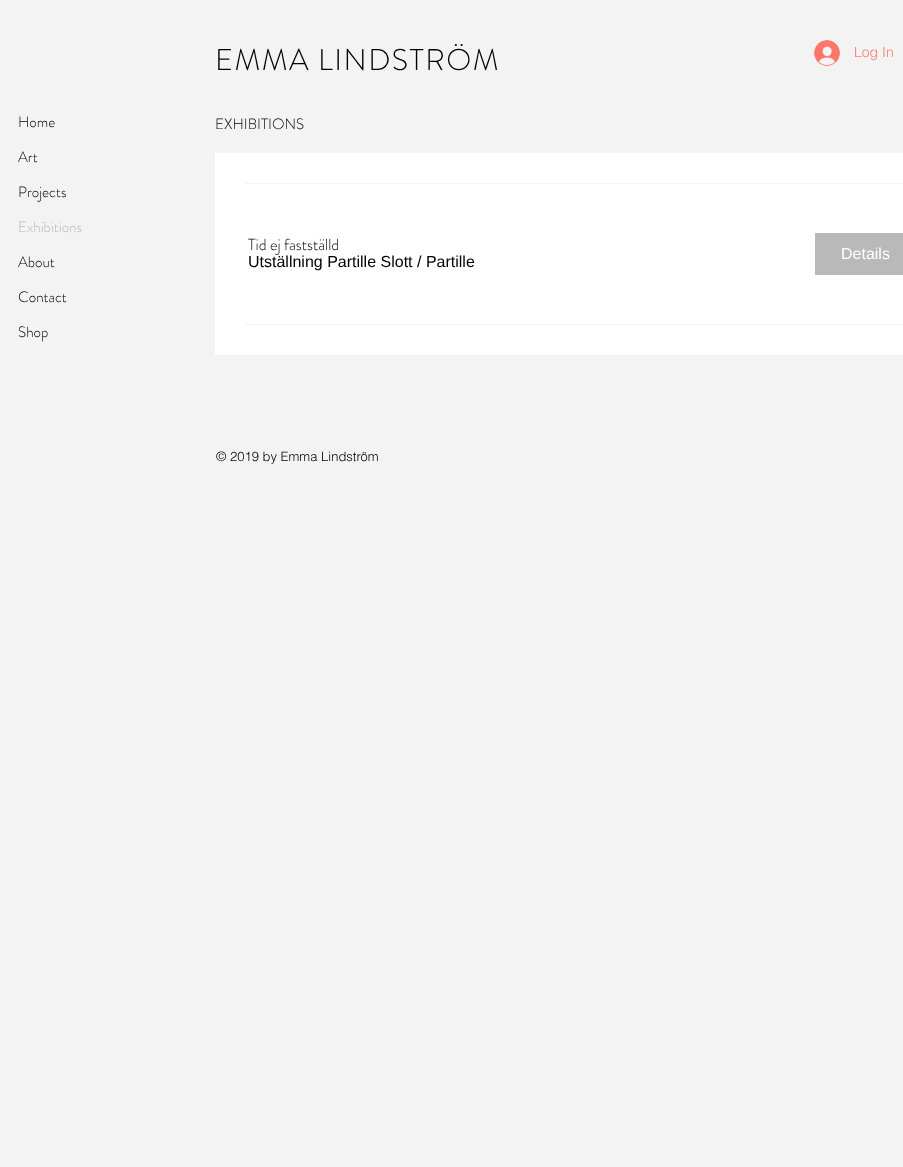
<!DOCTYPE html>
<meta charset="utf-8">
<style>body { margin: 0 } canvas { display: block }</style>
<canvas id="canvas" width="903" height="1167"></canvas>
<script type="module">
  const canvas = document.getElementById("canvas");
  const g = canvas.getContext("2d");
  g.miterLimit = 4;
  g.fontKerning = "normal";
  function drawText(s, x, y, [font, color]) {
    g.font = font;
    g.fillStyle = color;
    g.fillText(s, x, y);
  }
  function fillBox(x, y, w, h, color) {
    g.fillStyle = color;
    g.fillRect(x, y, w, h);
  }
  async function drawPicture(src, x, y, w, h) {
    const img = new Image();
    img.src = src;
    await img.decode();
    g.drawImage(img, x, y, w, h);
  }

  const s1 = ["300 30px 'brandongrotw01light'", "#000000"];
  const s2 = ["300 14px helvetica", "#FF776B"];
  const s3 = ["300 15px 'brandongrotw01light'", "#000000"];
  const s4 = ["300 15px 'brandongrotw01light'", "#B9B9B9"];
  const s5 = ["300 16px 'brandongrotw01light'", "#000000"];
  const s6 = ["16px Liberation Sans", "#000000"];
  const s7 = ["16px Liberation Sans", "#FFFFFF"];
  const s8 = ["300 13px helvetica", "#000000"];

  fillBox(0, 0, 903, 1167, "#F3F3F3");
  g.letterSpacing = "1.5px";
  drawText("EMMA LINDSTRÖM", 215, 70, s1);
  await drawPicture("pic1.png", 814, 40, 26, 26);
  g.letterSpacing = "0px";
  drawText("Log In", 854, 57, s2);
  drawText("Home", 18, 127, s3);
  drawText("Art", 18, 162, s3);
  drawText("Projects", 18, 197, s3);
  drawText("Exhibitions", 18, 232, s4);
  drawText("About", 18, 267, s3);
  drawText("Contact", 18, 302, s3);
  drawText("Shop", 18, 337, s3);
  drawText("EXHIBITIONS", 215, 129, s3);
  fillBox(215, 153, 688, 202, "#FFFFFF");
  fillBox(245, 183, 658, 1, "#F3F3F3");
  fillBox(245, 324, 658, 1, "#F3F3F3");
  drawText("Tid ej fastställd", 248, 250, s5);
  drawText("Utställning Partille Slott", 248, 267, s6);
  drawText("/ Partille", 417, 267, s6);
  fillBox(815, 233, 88, 42, "#B9B9B9");
  drawText("Details", 841, 259, s7);
  drawText("© 2019 by Emma Lindström", 216, 461, s8);
</script>
